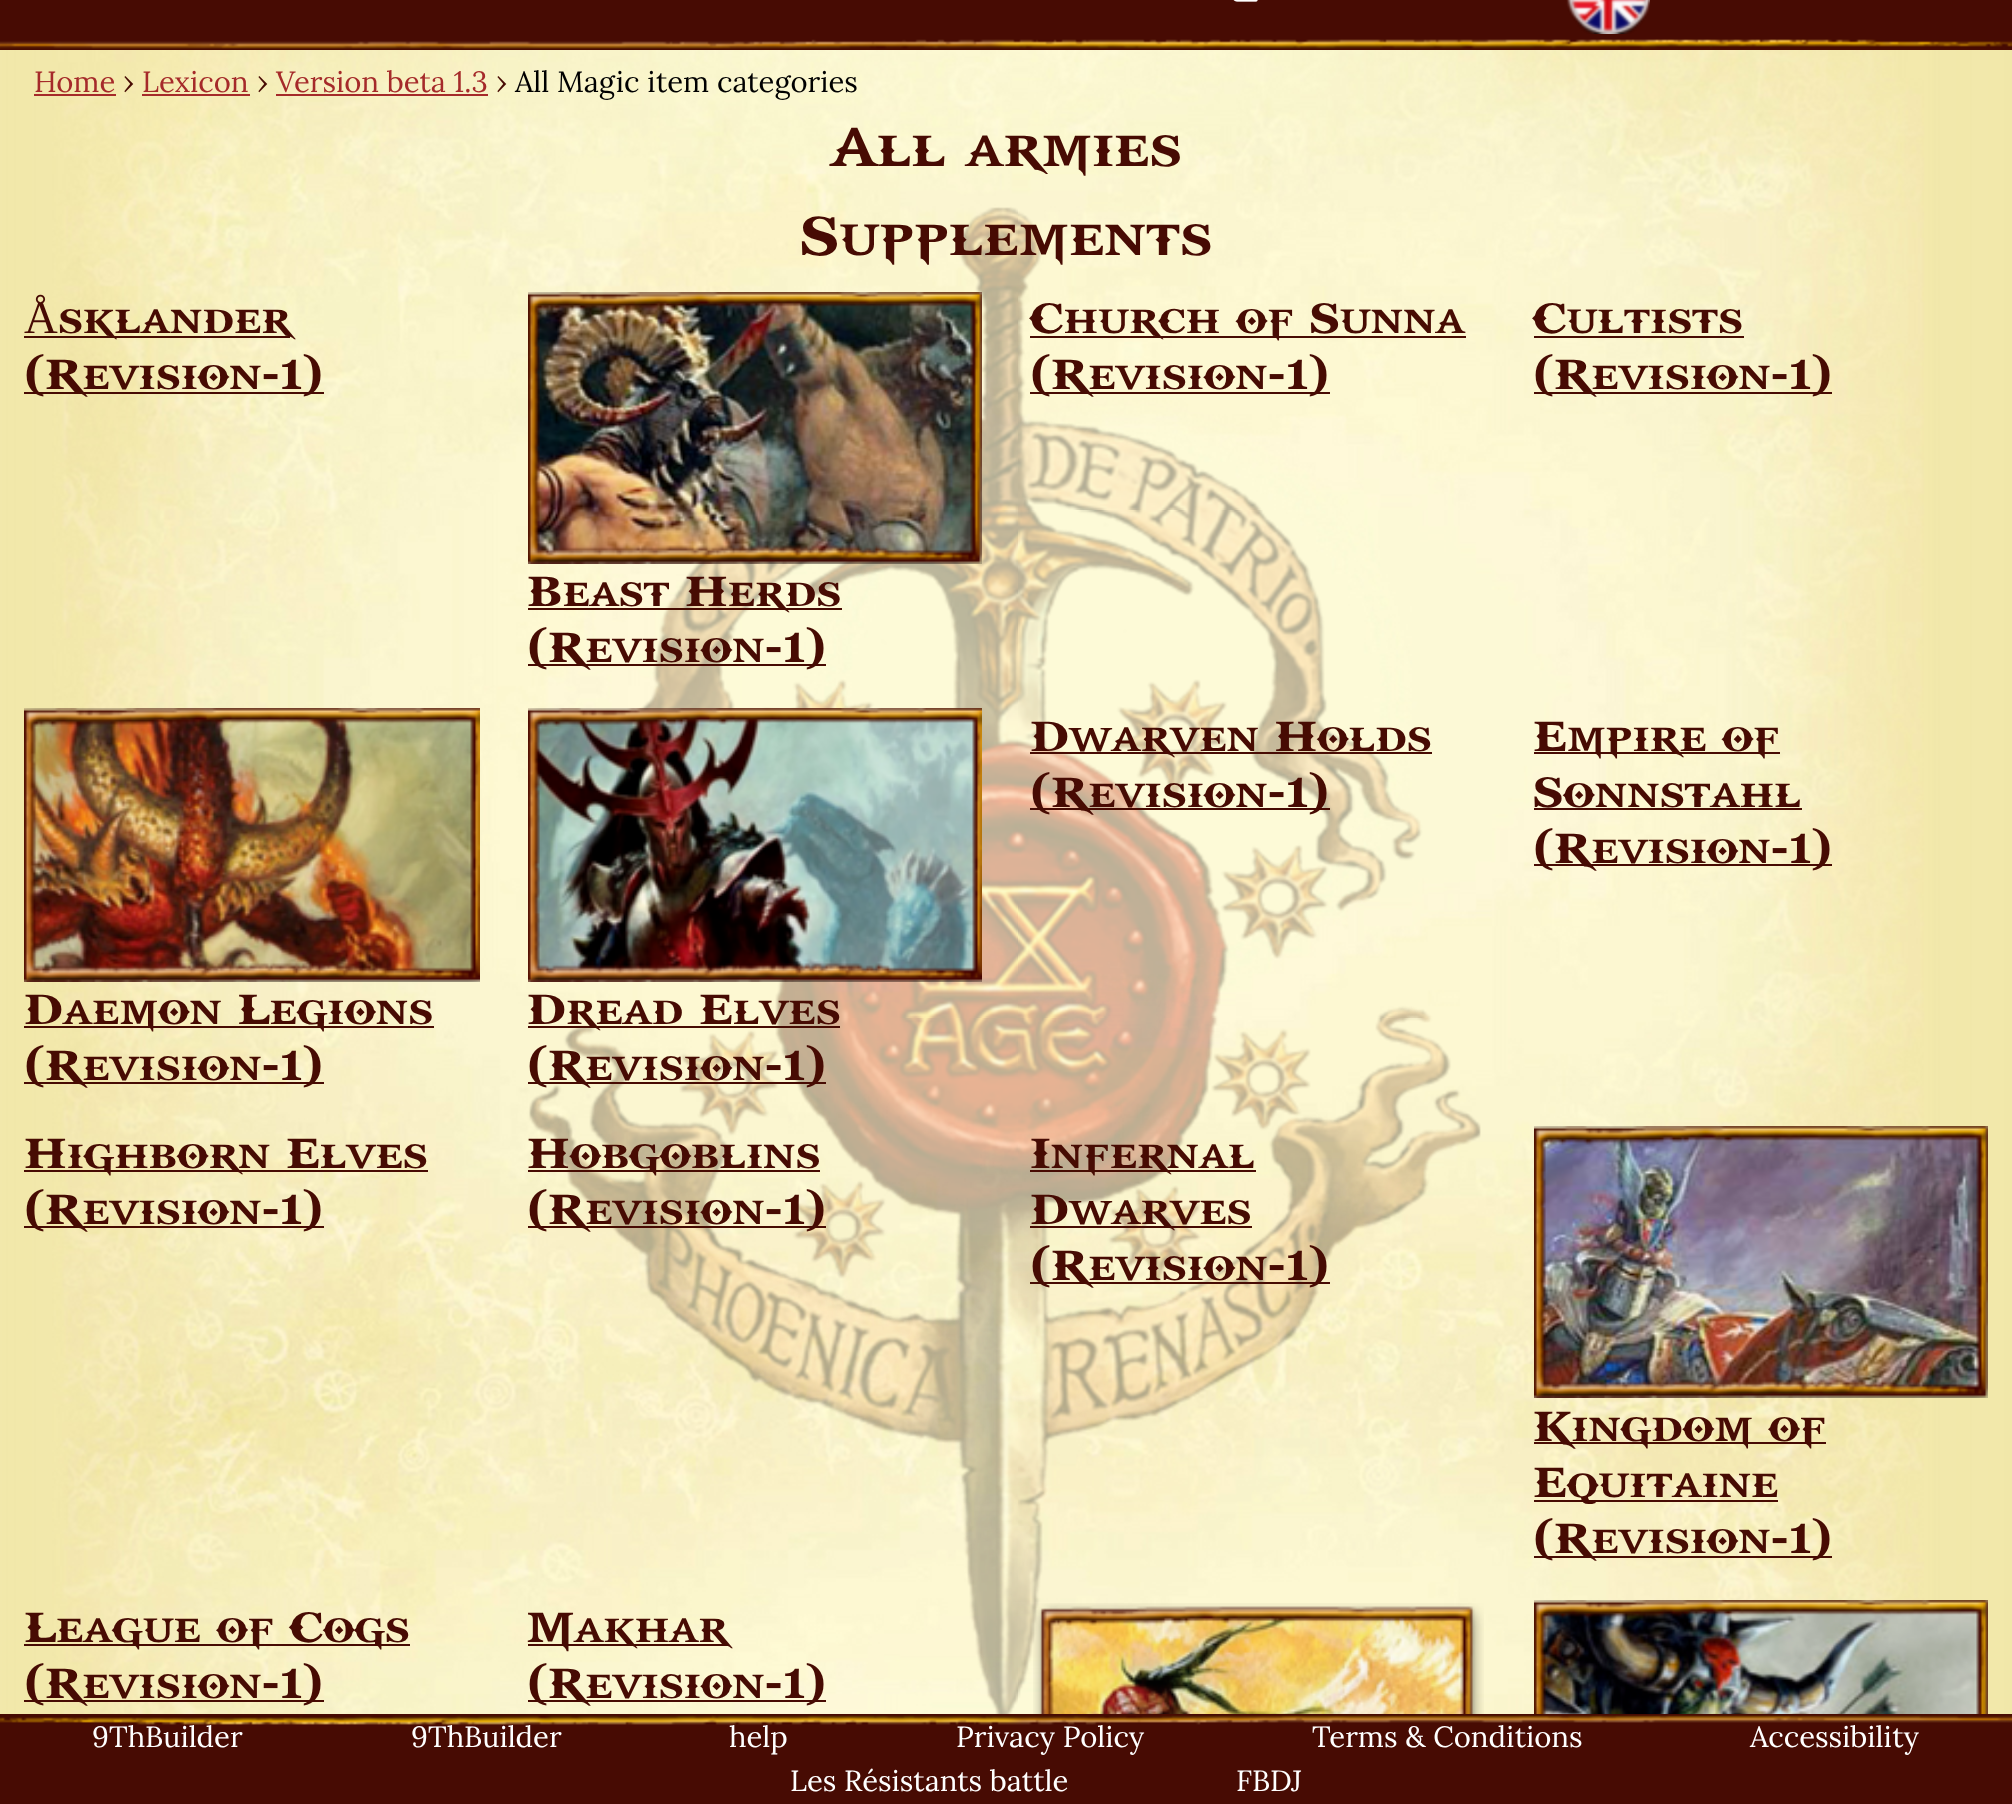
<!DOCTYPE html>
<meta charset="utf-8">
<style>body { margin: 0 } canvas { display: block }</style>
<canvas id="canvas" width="2012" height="1804"></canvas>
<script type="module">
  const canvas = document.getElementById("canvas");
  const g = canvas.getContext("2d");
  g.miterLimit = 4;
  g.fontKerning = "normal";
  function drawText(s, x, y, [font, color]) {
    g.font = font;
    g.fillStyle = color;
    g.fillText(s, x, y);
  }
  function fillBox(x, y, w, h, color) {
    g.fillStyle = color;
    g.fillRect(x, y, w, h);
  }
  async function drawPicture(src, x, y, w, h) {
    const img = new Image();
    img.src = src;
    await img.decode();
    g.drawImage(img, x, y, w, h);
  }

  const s1 = ["29.25px Lora", "#A52A2A"];
  const s2 = ["29.25px Lora", "#470B03"];
  const s3 = ["29.25px Lora", "#000000"];
  const s4 = ["60.5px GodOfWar", "#470B03"];
  const s5 = ["46.75px Liberation Serif", "#470B03"];
  const s6 = ["46.75px GodOfWar", "#470B03"];
  const s7 = ["29.25px Lora", "#FFFFFF"];

  fillBox(0, 0, 2012, 1804, "#FFFFFF");
  await drawPicture("pic1.png", 0, 50, 2012, 1664);
  fillBox(0, 0, 2012, 50, "#470B03");
  await drawPicture("pic2.png", 0, 39, 2012, 10);
  await drawPicture("pic3.png", 1233, 0, 25, 2);
  await drawPicture("pic4.png", 1566, 0, 84, 34);
  await drawPicture("pic5.png", 529, 207, 952, 1507);
  drawText("Home", 34, 92, s1);
  fillBox(34, 94, 82, 2, "#A52A2A");
  drawText("›", 123, 92, s2);
  drawText("Lexicon", 142, 92, s1);
  fillBox(142, 94, 108, 2, "#A52A2A");
  drawText("›", 257, 92, s2);
  drawText("Version beta 1.3", 276, 92, s1);
  fillBox(276, 94, 212, 2, "#A52A2A");
  drawText("›", 496, 92, s2);
  drawText("All Magic item categories", 515, 92, s3);
  drawText("All armies", 831, 166, s4);
  drawText("Supplements", 800, 255, s4);
  drawText("Å", 24, 333, s5);
  fillBox(24, 336, 266, 2, "#470B03");
  drawText("sklander", 58, 333, s6);
  fillBox(24, 392, 300, 2, "#470B03");
  drawText("(Revision-1)", 24, 389, s6);
  fillBox(1030, 336, 436, 2, "#470B03");
  drawText("Church of Sunna", 1030, 333, s6);
  fillBox(1030, 392, 300, 2, "#470B03");
  drawText("(Revision-1)", 1030, 389, s6);
  drawText("Cultists", 1533, 333, s6);
  fillBox(1534, 336, 210, 2, "#470B03");
  fillBox(1534, 392, 298, 2, "#470B03");
  drawText("(Revision-1)", 1533, 389, s6);
  await drawPicture("pic6.png", 528, 292, 454, 272);
  fillBox(528, 608, 314, 2, "#470B03");
  drawText("Beast Herds", 527, 606, s6);
  fillBox(528, 664, 298, 2, "#470B03");
  drawText("(Revision-1)", 527, 662, s6);
  fillBox(1030, 752, 402, 2, "#470B03");
  drawText("Dwarven Holds", 1030, 751, s6);
  fillBox(1030, 808, 300, 2, "#470B03");
  drawText("(Revision-1)", 1030, 807, s6);
  fillBox(1534, 752, 246, 2, "#470B03");
  drawText("Empire of", 1533, 751, s6);
  drawText("Sonnstahl", 1533, 807, s6);
  fillBox(1534, 808, 268, 2, "#470B03");
  fillBox(1534, 864, 298, 2, "#470B03");
  drawText("(Revision-1)", 1533, 863, s6);
  await drawPicture("pic7.png", 24, 708, 456, 274);
  fillBox(24, 1026, 410, 2, "#470B03");
  drawText("Daemon Legions", 24, 1024, s6);
  fillBox(24, 1082, 300, 2, "#470B03");
  drawText("(Revision-1)", 24, 1080, s6);
  await drawPicture("pic8.png", 528, 708, 454, 274);
  fillBox(528, 1026, 312, 2, "#470B03");
  drawText("Dread Elves", 527, 1024, s6);
  fillBox(528, 1082, 298, 2, "#470B03");
  drawText("(Revision-1)", 527, 1080, s6);
  fillBox(24, 1170, 404, 2, "#470B03");
  drawText("Highborn Elves", 24, 1168, s6);
  fillBox(24, 1226, 300, 2, "#470B03");
  drawText("(Revision-1)", 24, 1224, s6);
  fillBox(528, 1170, 292, 2, "#470B03");
  drawText("Hobgoblins", 527, 1168, s6);
  fillBox(528, 1226, 298, 2, "#470B03");
  drawText("(Revision-1)", 527, 1224, s6);
  fillBox(1030, 1170, 226, 2, "#470B03");
  drawText("Infernal", 1030, 1168, s6);
  fillBox(1030, 1226, 222, 2, "#470B03");
  drawText("Dwarves", 1030, 1224, s6);
  fillBox(1030, 1282, 300, 2, "#470B03");
  drawText("(Revision-1)", 1030, 1280, s6);
  await drawPicture("pic9.png", 1534, 1126, 454, 272);
  fillBox(1534, 1442, 292, 2, "#470B03");
  drawText("Kingdom of", 1533, 1441, s6);
  fillBox(1534, 1500, 244, 2, "#470B03");
  drawText("Equitaine", 1533, 1497, s6);
  fillBox(1534, 1556, 298, 2, "#470B03");
  drawText("(Revision-1)", 1533, 1553, s6);
  fillBox(24, 1644, 386, 2, "#470B03");
  drawText("League of Cogs", 24, 1642, s6);
  fillBox(24, 1700, 300, 2, "#470B03");
  drawText("(Revision-1)", 24, 1698, s6);
  fillBox(528, 1644, 200, 2, "#470B03");
  drawText("Makhar", 527, 1642, s6);
  fillBox(528, 1700, 298, 2, "#470B03");
  drawText("(Revision-1)", 527, 1698, s6);
  await drawPicture("pic10.png", 1033, 1603, 451, 111);
  await drawPicture("pic11.png", 1534, 1600, 454, 114);
  fillBox(0, 1714, 2012, 90, "#470B03");
  await drawPicture("pic12.png", 0, 1715, 2012, 10);
  drawText("9ThBuilder", 92, 1747, s7);
  drawText("9ThBuilder", 411, 1747, s7);
  drawText("help", 729, 1747, s7);
  drawText("Privacy Policy", 956, 1747, s7);
  drawText("Terms & Conditions", 1312, 1747, s7);
  drawText("Accessibility", 1750, 1747, s7);
  drawText("Les Résistants battle", 790, 1791, s7);
  drawText("FBDJ", 1236, 1791, s7);
</script>
